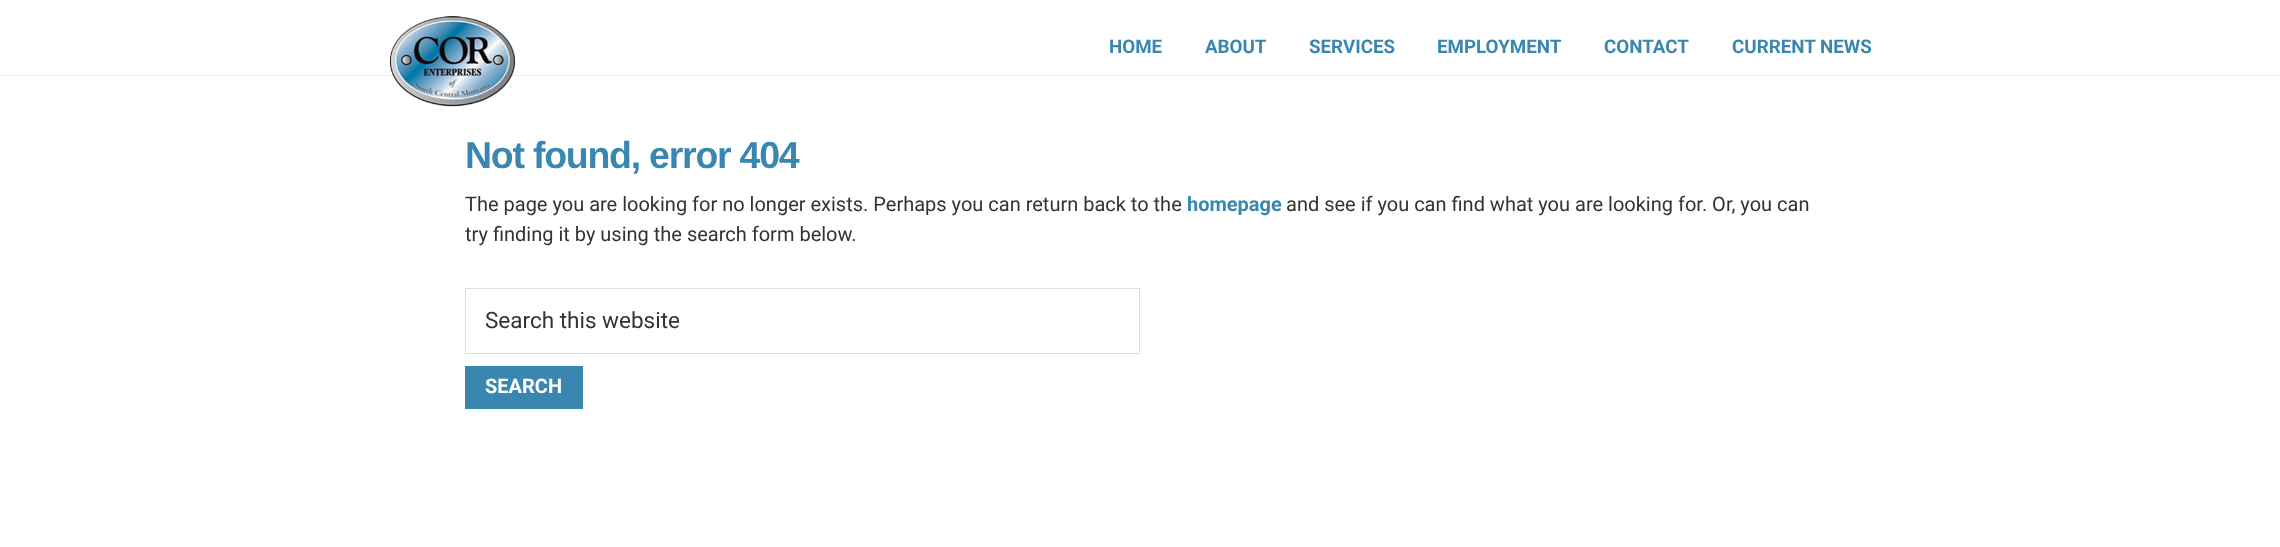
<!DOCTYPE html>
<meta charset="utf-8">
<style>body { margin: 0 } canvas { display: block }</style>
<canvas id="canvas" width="2280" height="547"></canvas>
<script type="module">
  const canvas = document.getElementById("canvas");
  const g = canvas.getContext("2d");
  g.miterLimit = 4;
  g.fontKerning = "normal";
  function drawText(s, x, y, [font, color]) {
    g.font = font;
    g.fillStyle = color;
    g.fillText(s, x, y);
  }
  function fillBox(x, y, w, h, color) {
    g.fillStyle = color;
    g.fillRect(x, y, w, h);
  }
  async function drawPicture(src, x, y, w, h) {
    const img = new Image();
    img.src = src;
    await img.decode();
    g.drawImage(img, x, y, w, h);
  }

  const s1 = ["bold 18.75px Roboto", "#3987B0"];
  const s2 = ["bold 37.5px Liberation Sans", "#3987B0"];
  const s3 = ["20px Roboto", "#333333"];
  const s4 = ["bold 20px Roboto", "#3987B0"];
  const s5 = ["22.5px Roboto", "#333333"];
  const s6 = ["bold 20px Roboto", "#FFFFFF"];

  fillBox(0, 0, 2280, 547, "#FFFFFF");
  fillBox(0, 75, 2280, 1, "#F1F1F1");
  await drawPicture("pic1.png", 390, 16, 125, 91);
  drawText("HOME", 1109, 53, s1);
  drawText("ABOUT", 1205, 53, s1);
  drawText("SERVICES", 1309, 53, s1);
  drawText("EMPLOYMENT", 1437, 53, s1);
  drawText("CONTACT", 1604, 53, s1);
  drawText("CURRENT NEWS", 1732, 53, s1);
  g.letterSpacing = "-1.25px";
  drawText("Not found, error 404", 465, 168, s2);
  g.letterSpacing = "0px";
  drawText("The page you are looking for no longer exists. Perhaps you can return back to the", 465, 211, s3);
  drawText("homepage", 1187, 211, s4);
  drawText("and see if you can find what you are looking for. Or, you can", 1286, 211, s3);
  drawText("try finding it by using the search form below.", 465, 241, s3);
  g.strokeStyle = "#DDDDDD";
  g.strokeRect(465.5, 288.5, 674, 65);
  drawText("Search this website", 485, 328, s5);
  fillBox(465, 366, 118, 43, "#3987B0");
  drawText("SEARCH", 485, 393, s6);
</script>
